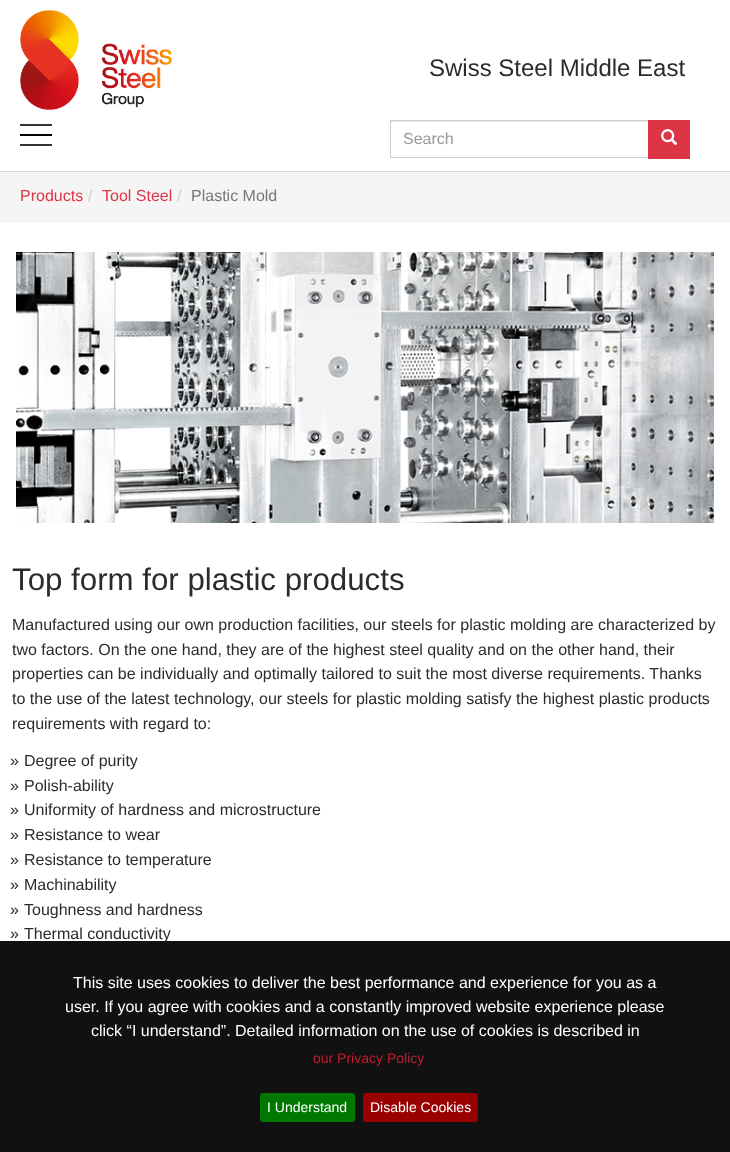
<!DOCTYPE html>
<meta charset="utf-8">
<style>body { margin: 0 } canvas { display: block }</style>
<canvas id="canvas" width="730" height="1152"></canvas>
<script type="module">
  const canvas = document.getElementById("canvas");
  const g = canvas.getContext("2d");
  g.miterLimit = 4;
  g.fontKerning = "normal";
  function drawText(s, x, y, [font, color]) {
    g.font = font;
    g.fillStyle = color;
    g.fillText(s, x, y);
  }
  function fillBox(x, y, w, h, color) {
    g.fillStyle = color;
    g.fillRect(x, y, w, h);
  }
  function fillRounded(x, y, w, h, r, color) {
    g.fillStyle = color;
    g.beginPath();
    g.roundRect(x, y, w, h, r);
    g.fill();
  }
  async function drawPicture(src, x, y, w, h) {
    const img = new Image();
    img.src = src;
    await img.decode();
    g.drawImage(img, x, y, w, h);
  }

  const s1 = ["24px Liberation Sans", "#2B2B2B"];
  const s2 = ["16px Liberation Sans", "#999999"];
  const s3 = ["16px Liberation Sans", "#DC3545"];
  const s4 = ["16px Liberation Sans", "#CCCCCC"];
  const s5 = ["16px Liberation Sans", "#777777"];
  const s6 = ["31.25px Liberation Sans", "#2B2B2B"];
  const s7 = ["16px Liberation Sans", "#2B2B2B"];
  const s8 = ["16px Liberation Sans", "#FFFFFF"];
  const s9 = ["14px Liberation Sans", "#BE1E2D"];
  const s10 = ["14px Liberation Sans", "#FFFFFF"];

  fillBox(0, 0, 730, 1152, "#FFFFFF");
  fillBox(0, 171, 730, 1, "#D9D9D9");
  fillBox(20, 134, 32, 2, "#000000");
  fillBox(20, 124, 32, 2, "#333333");
  fillBox(20, 144, 32, 2, "#333333");
  await drawPicture("pic1.png", 20, 10, 152, 100);
  drawText("Swiss Steel Middle East", 429, 76, s1);
  fillBox(391, 121, 257, 1, "#ECECEC");
  g.strokeStyle = "#CCCCCC";
  g.strokeRect(390.5, 120.5, 258, 37);
  drawText("Search", 403, 144, s2);
  fillBox(648, 120, 42, 39, "#DC3545");
  await drawPicture("pic2.png", 661, 129, 17, 17);
  fillBox(0, 172, 730, 49, "#F5F5F5");
  fillBox(0, 221, 730, 1, "#EEEEEE");
  drawText("Products", 20, 201, s3);
  drawText("/", 88, 201, s4);
  drawText("Tool Steel", 102, 201, s3);
  drawText("/", 177, 201, s4);
  drawText("Plastic Mold", 191, 201, s5);
  await drawPicture("pic3.png", 16, 252, 698, 271);
  drawText("Top form for plastic products", 12, 590, s6);
  drawText("Manufactured using our own production facilities, our steels for plastic molding are characterized by", 12, 630, s7);
  drawText("two factors. On the one hand, they are of the highest steel quality and on the other hand, their", 12, 655, s7);
  drawText("properties can be individually and optimally tailored to suit the most diverse requirements. Thanks", 12, 679, s7);
  drawText("to the use of the latest technology, our steels for plastic molding satisfy the highest plastic products", 12, 704, s7);
  drawText("requirements with regard to:", 12, 729, s7);
  drawText("»", 10, 766, s7);
  drawText("Degree of purity", 24, 766, s7);
  drawText("»", 10, 791, s7);
  drawText("Polish-ability", 24, 791, s7);
  drawText("»", 10, 815, s7);
  drawText("Uniformity of hardness and microstructure", 24, 815, s7);
  drawText("»", 10, 840, s7);
  drawText("Resistance to wear", 24, 840, s7);
  drawText("»", 10, 865, s7);
  drawText("Resistance to temperature", 24, 865, s7);
  drawText("»", 10, 890, s7);
  drawText("Machinability", 24, 890, s7);
  drawText("»", 10, 915, s7);
  drawText("Toughness and hardness", 24, 915, s7);
  drawText("»", 10, 939, s7);
  drawText("Thermal conductivity", 24, 939, s7);
  fillBox(0, 941, 730, 211, "#111111");
  drawText("This site uses cookies to deliver the best performance and experience for you as a", 73, 988, s8);
  drawText("user. If you agree with cookies and a constantly improved website experience please", 65, 1012, s8);
  drawText("click “I understand”. Detailed information on the use of cookies is described in", 91, 1036, s8);
  drawText("our Privacy Policy", 313, 1063, s9);
  fillRounded(260, 1093, 95, 29, 3, "#007700");
  drawText("I Understand", 267, 1112, s10);
  fillRounded(363, 1093, 115, 29, 3, "#990000");
  drawText("Disable Cookies", 370, 1112, s10);
</script>
